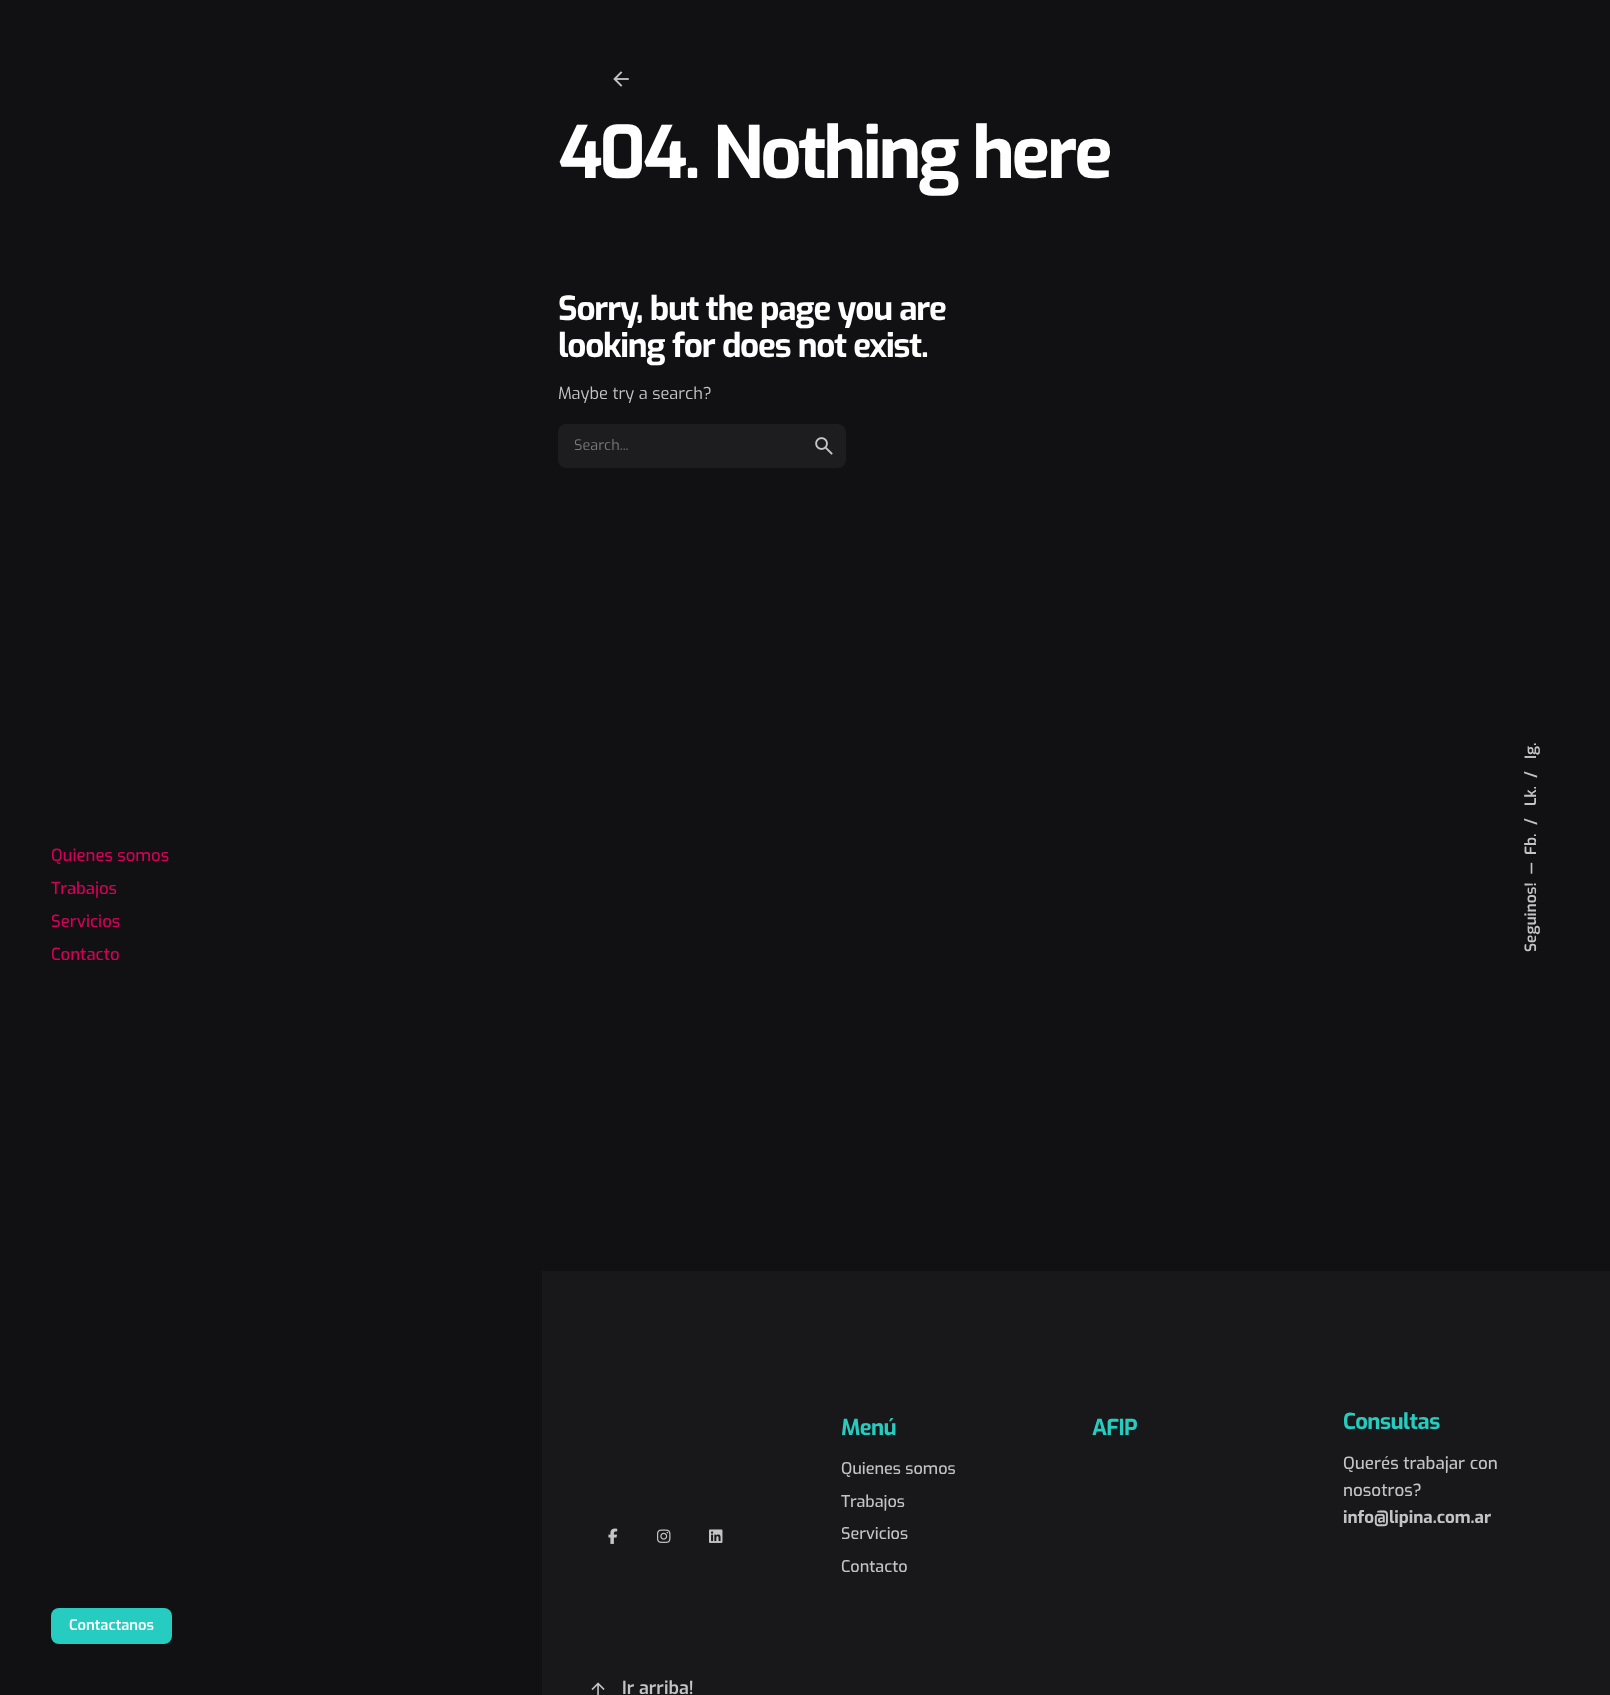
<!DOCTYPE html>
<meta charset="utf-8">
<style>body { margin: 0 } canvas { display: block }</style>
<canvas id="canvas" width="1610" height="1695"></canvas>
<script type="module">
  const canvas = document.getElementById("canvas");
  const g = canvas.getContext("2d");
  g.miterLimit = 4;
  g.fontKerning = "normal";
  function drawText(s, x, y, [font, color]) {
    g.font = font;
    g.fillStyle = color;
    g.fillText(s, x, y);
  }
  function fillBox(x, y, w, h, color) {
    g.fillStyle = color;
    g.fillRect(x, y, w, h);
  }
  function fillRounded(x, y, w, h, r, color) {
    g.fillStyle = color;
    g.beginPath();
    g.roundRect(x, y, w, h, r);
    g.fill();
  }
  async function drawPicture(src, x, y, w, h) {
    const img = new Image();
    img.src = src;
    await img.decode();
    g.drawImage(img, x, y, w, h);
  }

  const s1 = ["bold 72px Exo", "#FFFFFF"];
  const s2 = ["bold 33.25px Exo", "#FFFFFF"];
  const s3 = ["16.5px Exo", "#C4C3C4"];
  const s4 = ["14.5px Exo", "#777779"];
  const s5 = ["500 16.75px Exo", "#D50057"];
  const s6 = ["600 14.75px Exo", "#FFFFFF"];
  const s7 = ["bold 22px Exo", "#27CCC0"];
  const s8 = ["500 16.25px Exo", "#C4C3C4"];
  const s9 = ["500 17px Exo", "#C4C3C4"];
  const s10 = ["bold 17px Exo", "#C4C3C4"];
  const s11 = ["600 18px Exo", "#C4C3C4"];

  fillBox(0, 0, 1610, 1695, "#111013");
  await drawPicture("pic1.png", 613, 71, 16, 16);
  g.letterSpacing = "-3.25px";
  drawText("404. Nothing here", 558, 178, s1);
  g.letterSpacing = "-1.2px";
  drawText("Sorry, but the page you are", 558, 320, s2);
  drawText("looking for does not exist.", 558, 357, s2);
  g.letterSpacing = "0px";
  drawText("Maybe try a search?", 558, 399, s3);
  fillRounded(558, 424, 288, 44, 8, "#1D1C1F");
  drawText("Search...", 574, 450, s4);
  await drawPicture("pic2.png", 815, 437, 18, 18);
  drawText("Quienes somos", 51, 861, s5);
  drawText("Trabajos", 51, 894, s5);
  drawText("Servicios", 51, 927, s5);
  drawText("Contacto", 51, 960, s5);
  fillRounded(51, 1608, 121, 36, 8, "#27CCC0");
  drawText("Contactanos", 69, 1630, s6);
  fillBox(542, 1271, 1068, 424, "#18171A");
  g.letterSpacing = "-0.5px";
  drawText("Menú", 841, 1435, s7);
  g.letterSpacing = "0px";
  drawText("Quienes somos", 841, 1474, s8);
  drawText("Trabajos", 841, 1507, s8);
  drawText("Servicios", 841, 1539, s8);
  drawText("Contacto", 841, 1572, s8);
  g.letterSpacing = "-0.5px";
  drawText("AFIP", 1092, 1435, s7);
  drawText("Consultas", 1343, 1429, s7);
  g.letterSpacing = "0px";
  drawText("Querés trabajar con", 1343, 1469, s9);
  drawText("nosotros?", 1343, 1496, s9);
  drawText("info@lipina.com.ar", 1343, 1523, s10);
  await drawPicture("pic3.png", 608, 1528, 10, 16);
  await drawPicture("pic4.png", 657, 1529, 14, 14);
  await drawPicture("pic5.png", 709, 1529, 14, 14);
  await drawPicture("pic6.png", 591, 1682, 14, 13);
  drawText("Ir arriba!", 622, 1694, s11);
  g.font = "600 15.5px Exo";
  g.save();
  g.translate(1536, 759);
  g.rotate(-90 * Math.PI / 180);
  g.fillText("Ig.", 0, 0);
  g.restore();
  g.save();
  g.translate(1536, 778);
  g.rotate(-90 * Math.PI / 180);
  g.fillText("/", 0, 0);
  g.restore();
  g.save();
  g.translate(1536, 806);
  g.rotate(-90 * Math.PI / 180);
  g.fillText("Lk.", 0, 0);
  g.restore();
  g.save();
  g.translate(1536, 825);
  g.rotate(-90 * Math.PI / 180);
  g.fillText("/", 0, 0);
  g.restore();
  g.save();
  g.translate(1536, 855);
  g.rotate(-90 * Math.PI / 180);
  g.fillText("Fb.", 0, 0);
  g.restore();
  g.save();
  g.translate(1536, 874);
  g.rotate(-90 * Math.PI / 180);
  g.fillText("—", 0, 0);
  g.restore();
  g.save();
  g.translate(1536, 952);
  g.rotate(-90 * Math.PI / 180);
  g.fillText("Seguinos!", 0, 0);
  g.restore();
</script>
